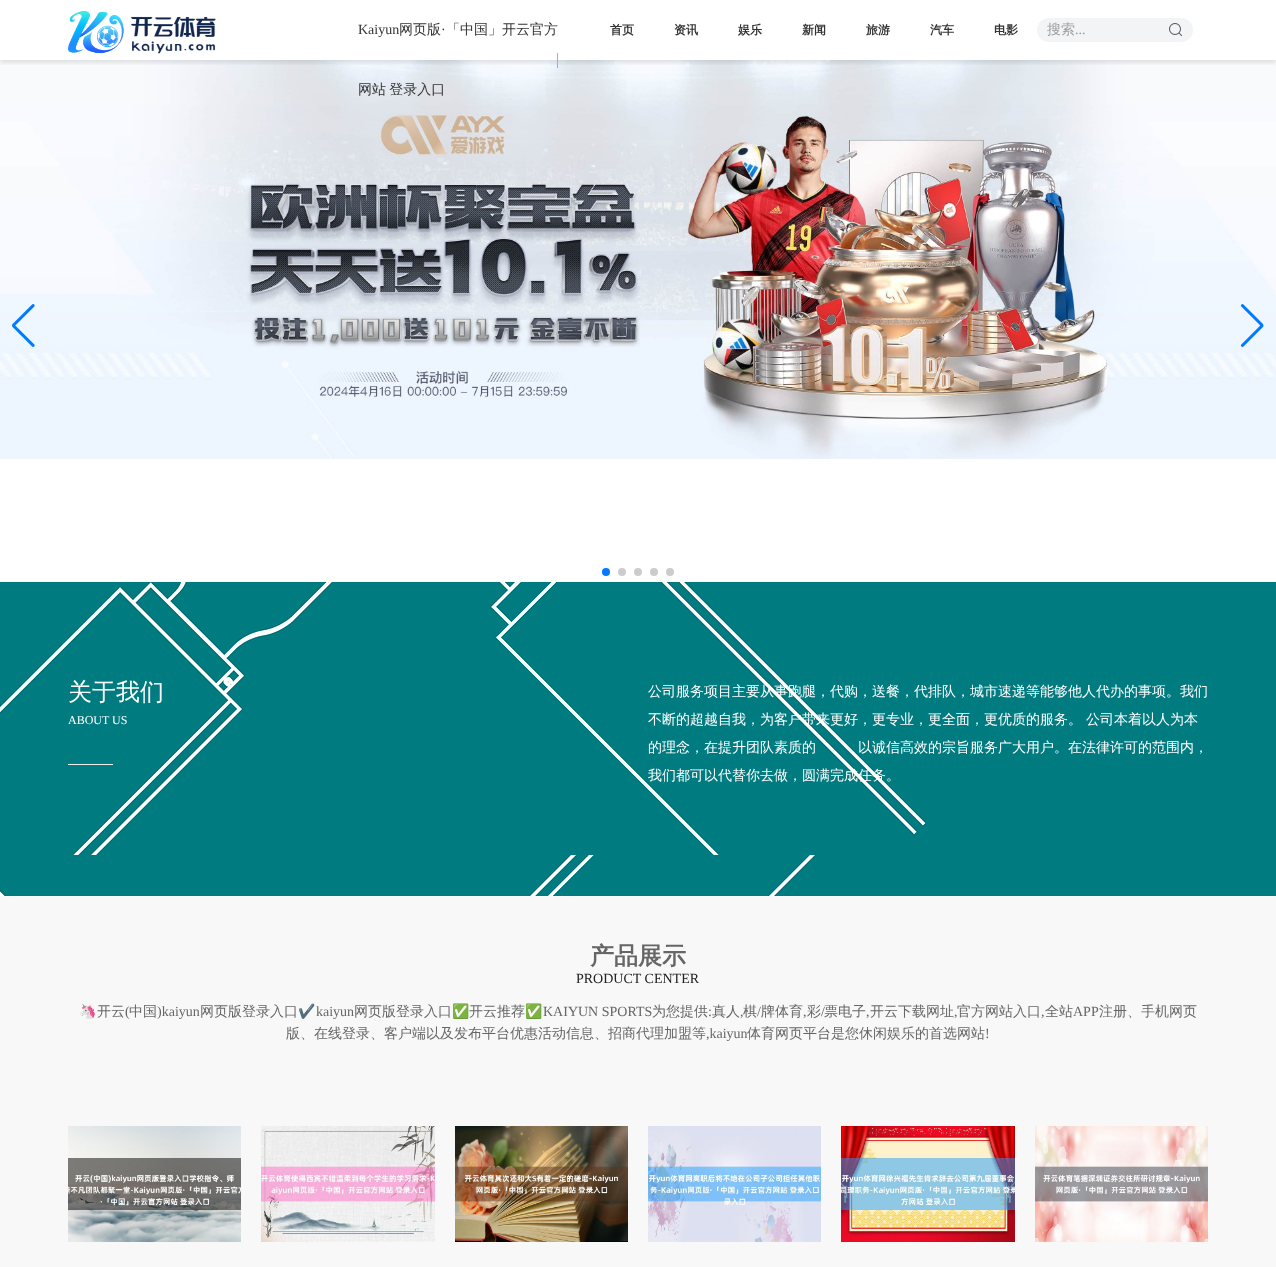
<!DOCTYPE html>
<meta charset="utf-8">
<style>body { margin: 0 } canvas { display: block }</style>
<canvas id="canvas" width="1276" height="1267"></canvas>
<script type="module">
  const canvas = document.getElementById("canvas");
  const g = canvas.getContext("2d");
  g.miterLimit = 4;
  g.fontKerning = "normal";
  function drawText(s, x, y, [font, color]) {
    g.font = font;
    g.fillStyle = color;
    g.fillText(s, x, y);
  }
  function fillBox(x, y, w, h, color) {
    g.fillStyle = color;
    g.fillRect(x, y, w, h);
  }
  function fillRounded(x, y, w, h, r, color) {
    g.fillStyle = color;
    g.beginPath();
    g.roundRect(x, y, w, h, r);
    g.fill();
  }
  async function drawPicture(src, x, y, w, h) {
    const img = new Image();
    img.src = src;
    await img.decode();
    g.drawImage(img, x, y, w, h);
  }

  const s1 = ["14px Liberation Serif", "#333333"];
  const s2 = ["500 14px WenQuanYi Zen Hei", "#333333"];
  const s3 = ["bold 12px WenQuanYi Zen Hei", "#333333"];
  const s4 = ["500 14px WenQuanYi Zen Hei", "#9E9E9E"];
  const s5 = ["14px Liberation Serif", "#9E9E9E"];
  const s6 = ["500 24px WenQuanYi Zen Hei", "#FFFFFF"];
  const s7 = ["12px Liberation Serif", "#FFFFFF"];
  const s8 = ["500 14px WenQuanYi Zen Hei", "#FFFFFF"];
  const s9 = ["bold 24px WenQuanYi Zen Hei", "#666666"];
  const s10 = ["14px Liberation Serif", "#222222"];
  const s11 = ["14px Noto Color Emoji", "#666666"];
  const s12 = ["500 14px WenQuanYi Zen Hei", "#666666"];
  const s13 = ["14px Liberation Serif", "#666666"];

  fillBox(0, 0, 1276, 1267, "#FFFFFF");
  await drawPicture("pic3.png", 0, 60, 1276, 399);
  g.save();
  g.beginPath();
  g.rect(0, 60, 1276, 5);
  g.clip();
  g.fillStyle = "rgba(0, 0, 0, 0.1)";
  g.filter = "blur(2px)";
  g.beginPath();
  g.rect(0, 3, 1276, 60);
  g.fill();
  g.filter = "none";
  g.restore();
  await drawPicture("pic1.png", 68, 10, 148, 44);
  drawText("Kaiyun", 358, 34, s1);
  drawText("网页版", 399, 34, s2);
  drawText("·", 441, 34, s1);
  drawText("「中国」开云官方", 446, 34, s2);
  fillBox(557, 53, 1, 15, "#AEAEAE");
  g.wordSpacing = "-1px";
  drawText("网站 登录入口", 358, 94, s2);
  g.wordSpacing = "0px";
  drawText("首页", 610, 34, s3);
  drawText("资讯", 674, 34, s3);
  drawText("娱乐", 738, 34, s3);
  drawText("新闻", 802, 34, s3);
  drawText("旅游", 866, 34, s3);
  drawText("汽车", 930, 34, s3);
  drawText("电影", 994, 34, s3);
  fillRounded(1037, 18, 156, 24, 12, "#F2F4F6");
  drawText("搜索", 1047, 34, s4);
  drawText("...", 1075, 34, s5);
  await drawPicture("pic2.png", 1169, 23, 14, 14);
  await drawPicture("pic4.png", 12, 304, 23, 43);
  await drawPicture("pic5.png", 1240, 304, 24, 43);
  g.fillStyle = "#007AFF";
  g.beginPath();
  g.arc(606, 572, 4, 0, Math.PI * 2);
  g.fill();
  g.fillStyle = "#CCCCCC";
  g.beginPath();
  g.arc(622, 572, 4, 0, Math.PI * 2);
  g.fill();
  g.beginPath();
  g.arc(638, 572, 4, 0, Math.PI * 2);
  g.fill();
  g.beginPath();
  g.arc(654, 572, 4, 0, Math.PI * 2);
  g.fill();
  g.beginPath();
  g.arc(670, 572, 4, 0, Math.PI * 2);
  g.fill();
  await drawPicture("pic6.png", 0, 582, 1276, 314);
  drawText("关于我们", 68, 700, s6);
  drawText("ABOUT US", 68, 724, s7);
  fillBox(68, 764, 45, 1, "#EEEEEE");
  drawText("公司服务项目主要从事跑腿，代购，送餐，代排队，城市速递等能够他人代办的事项。我们", 648, 696, s8);
  drawText("不断的超越自我，为客户带来更好，更专业，更全面，更优质的服务。", 648, 724, s8);
  drawText("公司本着以人为本", 1086, 724, s8);
  drawText("的理念，在提升团队素质的", 648, 752, s8);
  drawText("以诚信高效的宗旨服务广大用户。在法律许可的范围内，", 858, 752, s8);
  drawText("我们都可以代替你去做，圆满完成任务。", 648, 780, s8);
  fillBox(0, 896, 1276, 371, "#F8F8F8");
  drawText("产品展示", 590, 964, s9);
  drawText("PRODUCT CENTER", 576, 983, s10);
  drawText("🦄", 79, 1016, s11);
  drawText("开云", 97, 1016, s12);
  drawText("(", 125, 1016, s13);
  drawText("中国", 129, 1016, s12);
  drawText(")kaiyun", 157, 1016, s13);
  drawText("网页版登录入口", 200, 1016, s12);
  drawText("✔️", 298, 1016, s11);
  drawText("kaiyun", 316, 1016, s13);
  drawText("网页版登录入口", 354, 1016, s12);
  drawText("✅", 452, 1016, s11);
  drawText("开云推荐", 469, 1016, s12);
  drawText("✅", 525, 1016, s11);
  drawText("KAIYUN SPORTS", 543, 1016, s13);
  drawText("为您提供", 652, 1016, s12);
  drawText(":", 708, 1016, s13);
  drawText("真人", 712, 1016, s12);
  drawText(",", 740, 1016, s13);
  drawText("棋", 743, 1016, s12);
  drawText("/", 757, 1016, s13);
  drawText("牌体育", 761, 1016, s12);
  drawText(",", 803, 1016, s13);
  drawText("彩", 807, 1016, s12);
  drawText("/", 821, 1016, s13);
  drawText("票电子", 824, 1016, s12);
  drawText(",", 866, 1016, s13);
  drawText("开云下载网址", 870, 1016, s12);
  drawText(",", 954, 1016, s13);
  drawText("官方网站入口", 957, 1016, s12);
  drawText(",", 1041, 1016, s13);
  drawText("全站", 1045, 1016, s12);
  drawText("APP", 1073, 1016, s13);
  drawText("注册、手机网页", 1099, 1016, s12);
  drawText("版、在线登录、客户端以及发布平台优惠活动信息、招商代理加盟等", 286, 1038, s12);
  drawText(",kaiyun", 706, 1038, s13);
  drawText("体育网页平台是您休闲娱乐的首选网站", 747, 1038, s12);
  drawText("!", 985, 1038, s13);
  await drawPicture("pic7.png", 68, 1126, 173, 116);
  await drawPicture("pic8.png", 261, 1126, 174, 116);
  await drawPicture("pic9.png", 455, 1126, 173, 116);
  await drawPicture("pic10.png", 648, 1126, 173, 116);
  await drawPicture("pic11.png", 841, 1126, 174, 116);
  await drawPicture("pic12.png", 1035, 1126, 173, 116);
</script>
